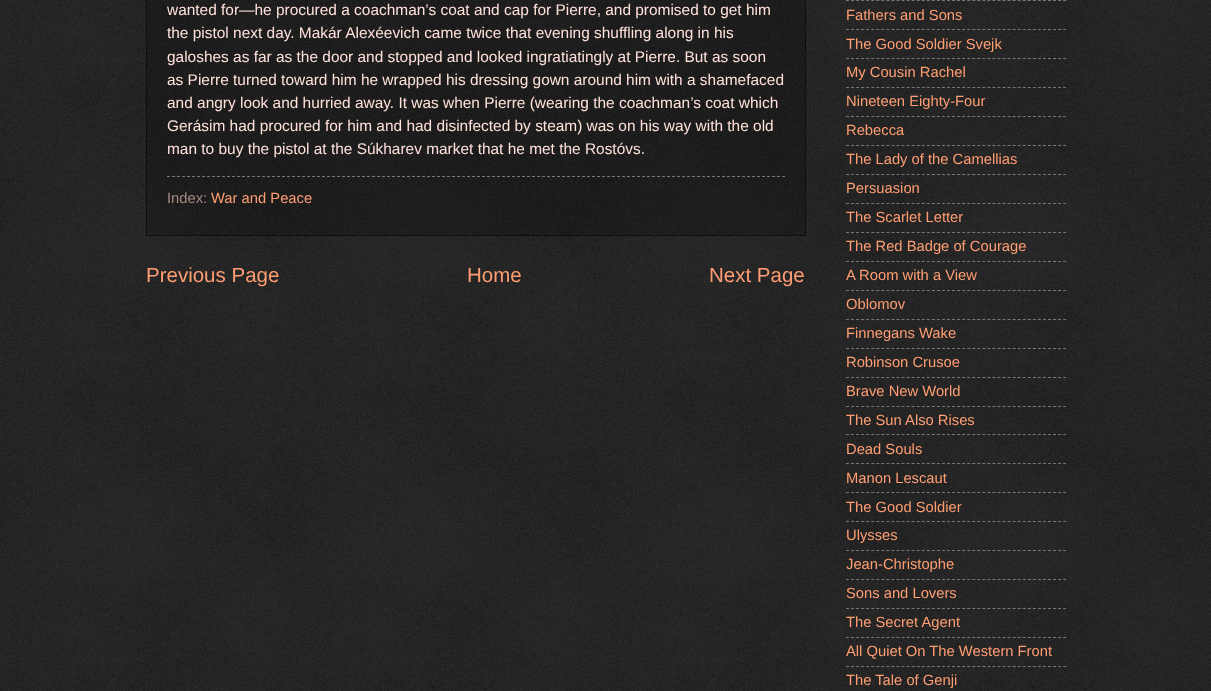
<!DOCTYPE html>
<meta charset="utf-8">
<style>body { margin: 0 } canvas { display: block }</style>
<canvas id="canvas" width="1211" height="691"></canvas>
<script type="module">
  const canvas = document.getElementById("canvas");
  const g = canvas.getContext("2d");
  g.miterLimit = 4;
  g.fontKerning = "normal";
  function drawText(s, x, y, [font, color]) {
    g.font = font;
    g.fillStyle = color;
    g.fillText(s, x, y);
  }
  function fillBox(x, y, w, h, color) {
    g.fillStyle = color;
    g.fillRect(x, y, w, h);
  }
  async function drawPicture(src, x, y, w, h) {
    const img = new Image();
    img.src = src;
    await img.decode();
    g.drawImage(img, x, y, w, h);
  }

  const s1 = ["15.45px Liberation Sans", "#FFE1DA"];
  const s2 = ["14.75px Liberation Sans", "#A78A83"];
  const s3 = ["14.75px Liberation Sans", "#FF9E72"];
  const s4 = ["20.5px Liberation Sans", "#FF9E72"];

  fillBox(0, 0, 1211, 691, "#000000");
  await drawPicture("pic1.png", 0, 0, 1211, 691);
  fillBox(146, 0, 660, 236, "rgba(0, 0, 0, 0.2)");
  g.beginPath();
  g.moveTo(805.5, -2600);
  g.lineTo(805.5, 236);
  g.strokeStyle = "#000000";
  g.setLineDash([1, 1]);
  g.stroke();
  g.beginPath();
  g.moveTo(146, 235.5);
  g.lineTo(806, 235.5);
  g.stroke();
  g.beginPath();
  g.moveTo(146.5, -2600);
  g.lineTo(146.5, 236);
  g.stroke();
  drawText("wanted for—he procured a coachman’s coat and cap for Pierre, and promised to get him", 167, 15, s1);
  drawText("the pistol next day. Makár Alexéevich came twice that evening shuffling along in his", 167, 38, s1);
  drawText("galoshes as far as the door and stopped and looked ingratiatingly at Pierre. But as soon", 167, 62, s1);
  drawText("as Pierre turned toward him he wrapped his dressing gown around him with a shamefaced", 167, 85, s1);
  drawText("and angry look and hurried away. It was when Pierre (wearing the coachman’s coat which", 167, 108, s1);
  drawText("Gerásim had procured for him and had disinfected by steam) was on his way with the old", 167, 131, s1);
  drawText("man to buy the pistol at the Súkharev market that he met the Rostóvs.", 167, 154, s1);
  g.beginPath();
  g.moveTo(167, 176.5);
  g.lineTo(785, 176.5);
  g.strokeStyle = "#777777";
  g.setLineDash([3, 2]);
  g.stroke();
  drawText("Index:", 167, 203, s2);
  drawText("War and Peace", 211, 203, s3);
  drawText("Previous Page", 146, 282, s4);
  drawText("Home", 467, 282, s4);
  drawText("Next Page", 709, 282, s4);
  g.beginPath();
  g.moveTo(846, 0.5);
  g.lineTo(1066, 0.5);
  g.setLineDash([3, 2.05]);
  g.stroke();
  drawText("Fathers and Sons", 846, 20, s3);
  g.beginPath();
  g.moveTo(846, 29.5);
  g.lineTo(1066, 29.5);
  g.stroke();
  drawText("The Good Soldier Svejk", 846, 49, s3);
  g.beginPath();
  g.moveTo(846, 58.5);
  g.lineTo(1066, 58.5);
  g.stroke();
  drawText("My Cousin Rachel", 846, 77, s3);
  g.beginPath();
  g.moveTo(846, 87.5);
  g.lineTo(1066, 87.5);
  g.stroke();
  drawText("Nineteen Eighty-Four", 846, 106, s3);
  g.beginPath();
  g.moveTo(846, 116.5);
  g.lineTo(1066, 116.5);
  g.stroke();
  drawText("Rebecca", 846, 135, s3);
  g.beginPath();
  g.moveTo(846, 145.5);
  g.lineTo(1066, 145.5);
  g.stroke();
  drawText("The Lady of the Camellias", 846, 164, s3);
  g.beginPath();
  g.moveTo(846, 174.5);
  g.lineTo(1066, 174.5);
  g.stroke();
  drawText("Persuasion", 846, 193, s3);
  g.beginPath();
  g.moveTo(846, 203.5);
  g.lineTo(1066, 203.5);
  g.stroke();
  drawText("The Scarlet Letter", 846, 222, s3);
  g.beginPath();
  g.moveTo(846, 232.5);
  g.lineTo(1066, 232.5);
  g.stroke();
  drawText("The Red Badge of Courage", 846, 251, s3);
  g.beginPath();
  g.moveTo(846, 261.5);
  g.lineTo(1066, 261.5);
  g.stroke();
  drawText("A Room with a View", 846, 280, s3);
  g.beginPath();
  g.moveTo(846, 290.5);
  g.lineTo(1066, 290.5);
  g.stroke();
  drawText("Oblomov", 846, 309, s3);
  g.beginPath();
  g.moveTo(846, 319.5);
  g.lineTo(1066, 319.5);
  g.stroke();
  drawText("Finnegans Wake", 846, 338, s3);
  g.beginPath();
  g.moveTo(846, 348.5);
  g.lineTo(1066, 348.5);
  g.stroke();
  drawText("Robinson Crusoe", 846, 367, s3);
  g.beginPath();
  g.moveTo(846, 377.5);
  g.lineTo(1066, 377.5);
  g.stroke();
  drawText("Brave New World", 846, 396, s3);
  g.beginPath();
  g.moveTo(846, 406.5);
  g.lineTo(1066, 406.5);
  g.stroke();
  drawText("The Sun Also Rises", 846, 425, s3);
  g.beginPath();
  g.moveTo(846, 434.5);
  g.lineTo(1066, 434.5);
  g.stroke();
  drawText("Dead Souls", 846, 454, s3);
  g.beginPath();
  g.moveTo(846, 463.5);
  g.lineTo(1066, 463.5);
  g.stroke();
  drawText("Manon Lescaut", 846, 483, s3);
  g.beginPath();
  g.moveTo(846, 492.5);
  g.lineTo(1066, 492.5);
  g.stroke();
  drawText("The Good Soldier", 846, 512, s3);
  g.beginPath();
  g.moveTo(846, 521.5);
  g.lineTo(1066, 521.5);
  g.stroke();
  drawText("Ulysses", 846, 540, s3);
  g.beginPath();
  g.moveTo(846, 550.5);
  g.lineTo(1066, 550.5);
  g.stroke();
  drawText("Jean-Christophe", 846, 569, s3);
  g.beginPath();
  g.moveTo(846, 579.5);
  g.lineTo(1066, 579.5);
  g.stroke();
  drawText("Sons and Lovers", 846, 598, s3);
  g.beginPath();
  g.moveTo(846, 608.5);
  g.lineTo(1066, 608.5);
  g.stroke();
  drawText("The Secret Agent", 846, 627, s3);
  g.beginPath();
  g.moveTo(846, 637.5);
  g.lineTo(1066, 637.5);
  g.stroke();
  drawText("All Quiet On The Western Front", 846, 656, s3);
  g.beginPath();
  g.moveTo(846, 666.5);
  g.lineTo(1066, 666.5);
  g.stroke();
  drawText("The Tale of Genji", 846, 685, s3);
</script>
